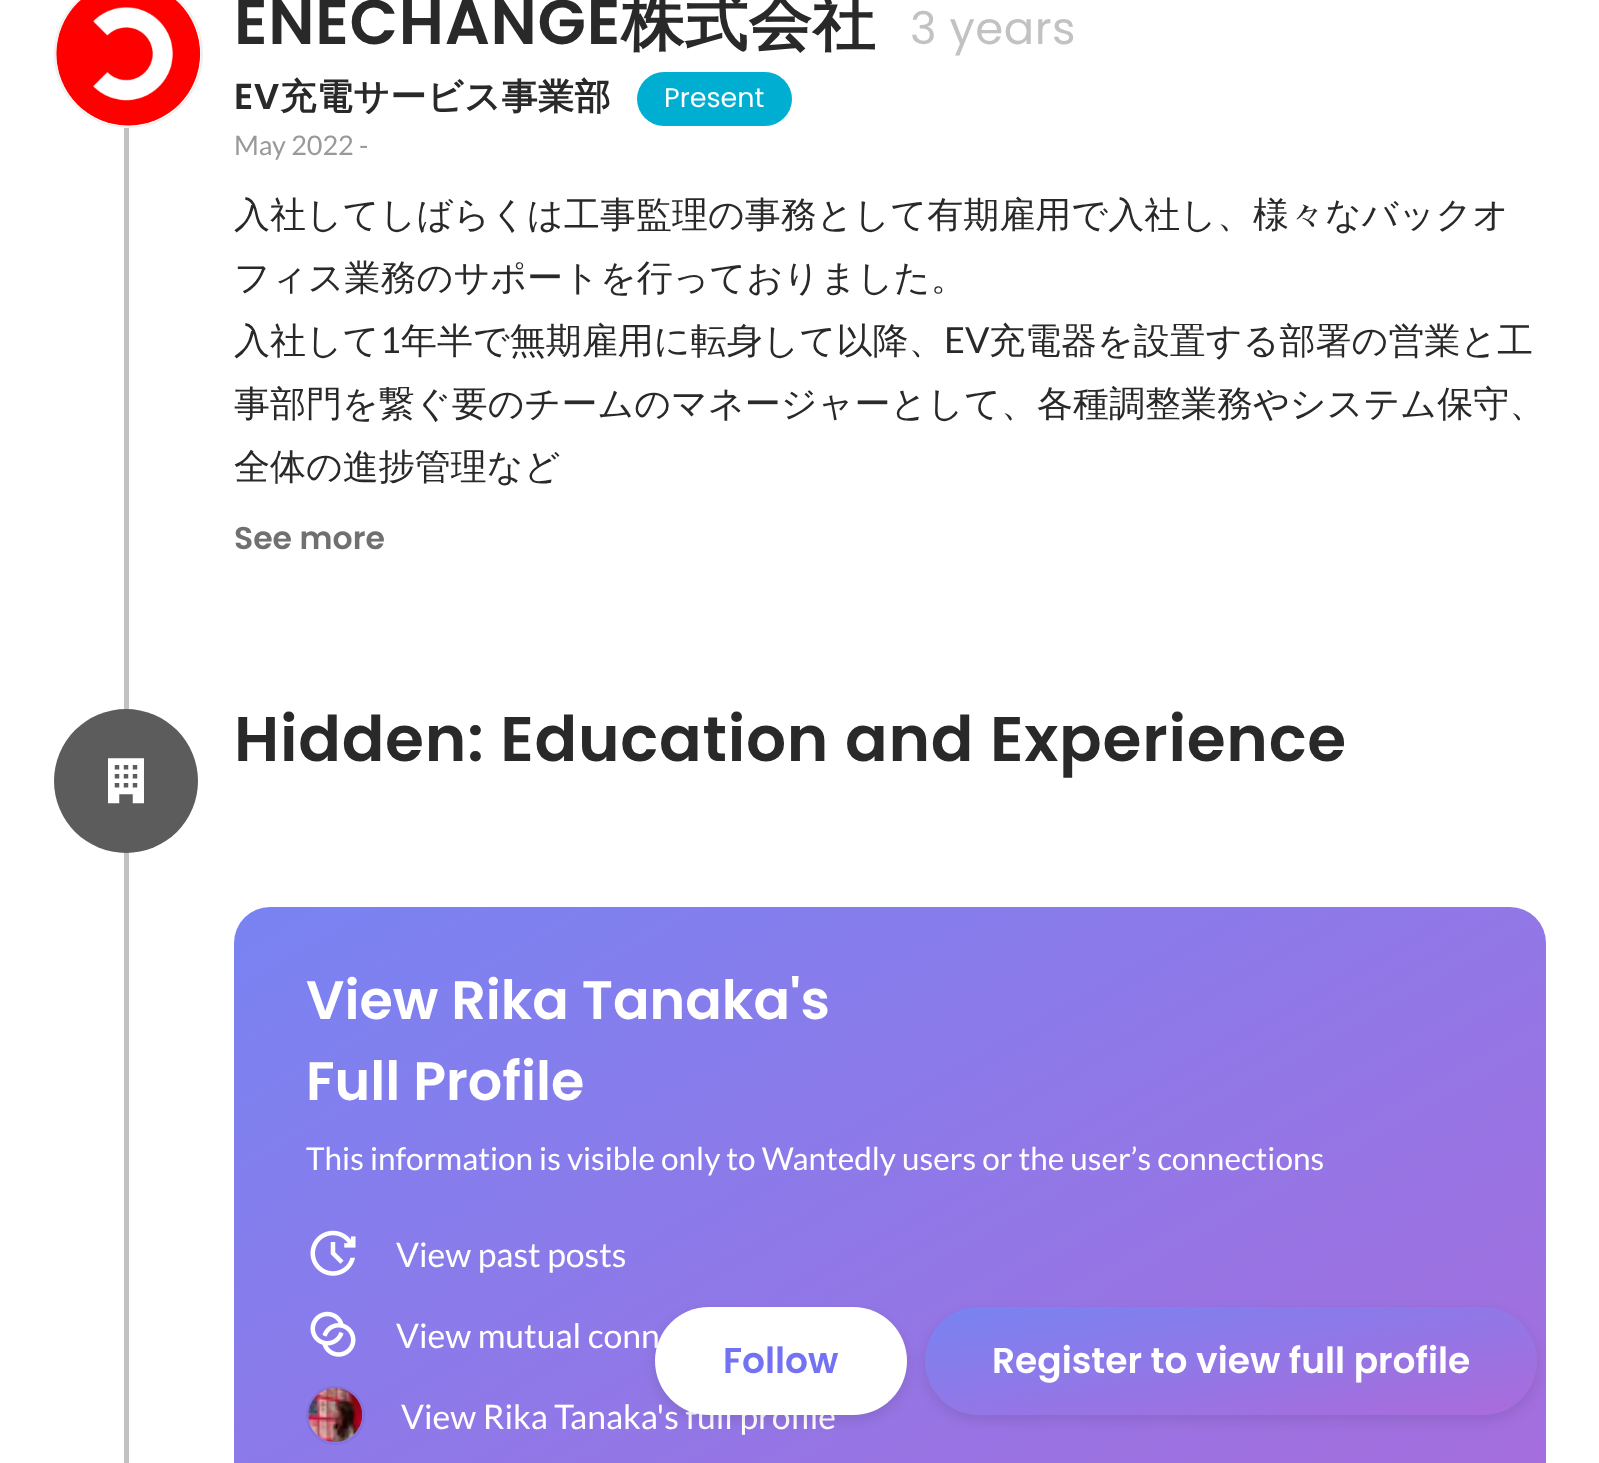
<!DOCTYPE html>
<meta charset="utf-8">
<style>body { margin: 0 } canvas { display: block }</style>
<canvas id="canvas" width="1599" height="1463"></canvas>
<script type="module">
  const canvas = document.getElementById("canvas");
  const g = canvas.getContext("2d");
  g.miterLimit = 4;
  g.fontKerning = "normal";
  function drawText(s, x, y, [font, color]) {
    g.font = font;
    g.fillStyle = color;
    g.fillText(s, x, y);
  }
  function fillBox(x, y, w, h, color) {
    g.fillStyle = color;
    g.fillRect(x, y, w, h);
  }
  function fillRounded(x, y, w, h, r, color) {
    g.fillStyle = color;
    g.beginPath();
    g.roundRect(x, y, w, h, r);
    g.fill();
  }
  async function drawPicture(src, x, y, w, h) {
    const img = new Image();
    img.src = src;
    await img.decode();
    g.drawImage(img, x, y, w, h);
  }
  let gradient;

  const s1 = ["600 63px Poppins", "#292929"];
  const s2 = ["bold 63px WenQuanYi Zen Hei", "#292929"];
  const s3 = ["45px Poppins", "#C2C2C2"];
  const s4 = ["600 36px Poppins", "#292929"];
  const s5 = ["bold 36px WenQuanYi Zen Hei", "#292929"];
  const s6 = ["27px Poppins", "#FFFFFF"];
  const s7 = ["27px Lato", "#999999"];
  const s8 = ["500 36px WenQuanYi Zen Hei", "#292929"];
  const s9 = ["36px Lato", "#292929"];
  const s10 = ["600 31.5px Poppins", "#707070"];
  const s11 = ["600 54px Poppins", "#FFFFFF"];
  const s12 = ["31.5px Lato", "#FFFFFF"];
  const s13 = ["33.75px Lato", "#FFFFFF"];
  const s14 = ["600 36px Poppins", "#7372F2"];
  const s15 = ["600 36px Poppins", "#FFFFFF"];

  fillBox(0, 0, 1599, 1463, "#FFFFFF");
  fillBox(124, 128, 5, 1335, "#C2C2C2");
  g.beginPath();
  g.roundRect(55, -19, 147, 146, 73);
  g.strokeStyle = "#F0F0F0";
  g.lineWidth = 2;
  g.stroke();
  await drawPicture("pic1.png", 56, 0, 145, 126);
  g.letterSpacing = "0.75px";
  drawText("ENECHANGE", 234, 44, s1);
  drawText("株式会社", 621, 44, s2);
  g.letterSpacing = "0.5px";
  drawText("3 years", 910, 44, s3);
  drawText("EV", 234, 109, s4);
  drawText("充電サービス事業部", 280, 109, s5);
  fillRounded(637, 72, 155, 54, 27, "#00AED1");
  g.letterSpacing = "0px";
  drawText("Present", 664, 107, s6);
  drawText("May 2022 -", 234, 155, s7);
  drawText("入社してしばらくは工事監理の事務として有期雇用で入社し、様々なバックオ", 234, 227, s8);
  drawText("フィス業務のサポートを行っておりました。", 234, 290, s8);
  drawText("入社して", 234, 353, s8);
  drawText("1", 380, 353, s9);
  drawText("年半で無期雇用に転身して以降、", 401, 353, s8);
  drawText("EV", 944, 353, s9);
  drawText("充電器を設置する部署の営業と工", 989, 353, s8);
  drawText("事部門を繋ぐ要のチームのマネージャーとして、各種調整業務やシステム保守、", 234, 416, s8);
  drawText("全体の進捗管理など", 234, 479, s8);
  drawText("See more", 234, 549, s10);
  g.fillStyle = "#5C5C5C";
  g.beginPath();
  g.arc(126, 781, 72, 0, Math.PI * 2);
  g.fill();
  await drawPicture("pic2.png", 108, 758, 36, 46);
  g.letterSpacing = "0.75px";
  drawText("Hidden: Education and Experience", 234, 761, s1);
  gradient = g.createLinearGradient(574, 715, 1205, 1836);
  gradient.addColorStop(0, "#7983F2");
  gradient.addColorStop(1, "#AB6BDB");
  g.fillStyle = gradient;
  g.beginPath();
  g.roundRect(234, 907, 1312, 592, 36);
  g.fill();
  g.letterSpacing = "0px";
  drawText("View Rika Tanaka's", 306, 1019, s11);
  drawText("Full Profile", 306, 1100, s11);
  drawText("This information is visible only to Wantedly users or the user’s connections", 306, 1170, s12);
  await drawPicture("pic3.png", 310, 1230, 46, 46);
  drawText("View past posts", 396, 1267, s13);
  await drawPicture("pic4.png", 310, 1311, 46, 46);
  drawText("View mutual conn", 396, 1348, s13);
  g.beginPath();
  g.arc(335.5, 1415.5, 28.5, 0, Math.PI * 2);
  g.strokeStyle = "#8472DB";
  g.stroke();
  await drawPicture("pic5.png", 308, 1388, 55, 54);
  drawText("View Rika Tanaka's full profile", 401, 1429, s13);
  g.fillStyle = "rgba(0, 0, 0, 0.1)";
  g.filter = "blur(7px)";
  g.beginPath();
  g.roundRect(655, 1312, 252, 108, 54);
  g.fill();
  g.filter = "none";
  fillRounded(655, 1307, 252, 108, 54, "#FFFFFF");
  drawText("Follow", 723, 1373, s14);
  g.fillStyle = "rgba(0, 0, 0, 0.1)";
  g.filter = "blur(7px)";
  g.beginPath();
  g.roundRect(925, 1312, 612, 108, 54);
  g.fill();
  g.filter = "none";
  gradient = g.createLinearGradient(1212, 1257, 1249, 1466);
  gradient.addColorStop(0, "#7983F2");
  gradient.addColorStop(1, "#AB6BDB");
  g.fillStyle = gradient;
  g.beginPath();
  g.roundRect(925, 1307, 612, 108, 54);
  g.fill();
  drawText("Register to view full profile", 992, 1373, s15);
</script>
